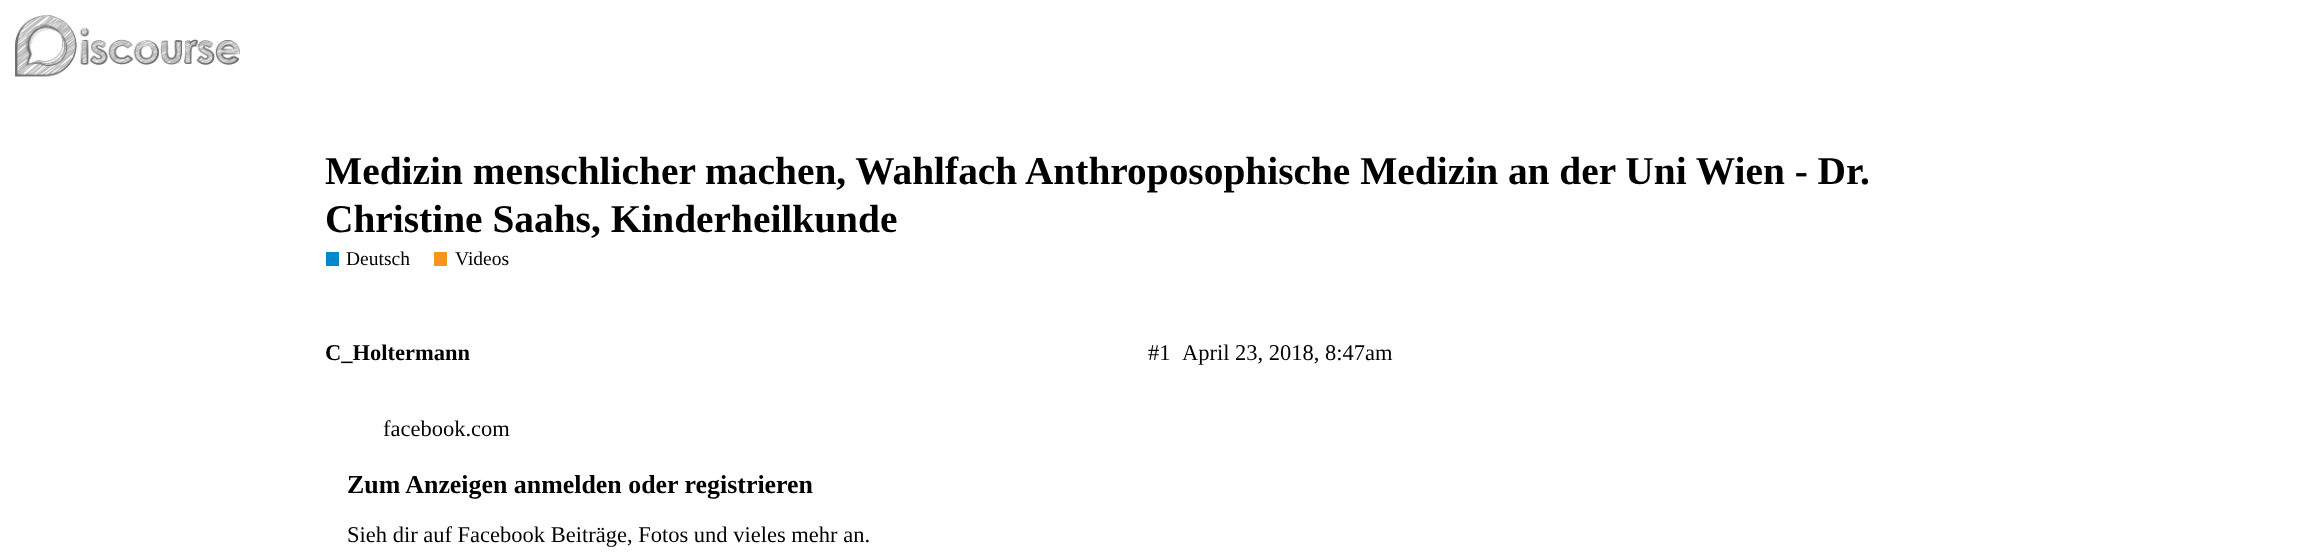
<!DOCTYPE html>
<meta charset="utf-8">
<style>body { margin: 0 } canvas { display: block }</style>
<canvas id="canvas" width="2314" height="553"></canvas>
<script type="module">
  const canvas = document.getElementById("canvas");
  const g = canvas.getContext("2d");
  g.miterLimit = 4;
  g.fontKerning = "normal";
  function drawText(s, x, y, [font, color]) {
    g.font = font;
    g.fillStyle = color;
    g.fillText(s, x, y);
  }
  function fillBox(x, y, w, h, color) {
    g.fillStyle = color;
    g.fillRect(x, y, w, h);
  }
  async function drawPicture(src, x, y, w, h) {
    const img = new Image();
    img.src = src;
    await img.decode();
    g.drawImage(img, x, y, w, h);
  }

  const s1 = ["bold 39.4px Liberation Serif", "#000000"];
  const s2 = ["19.5px Liberation Serif", "#000000"];
  const s3 = ["bold 22.5px Liberation Serif", "#000000"];
  const s4 = ["22.5px Liberation Serif", "#000000"];
  const s5 = ["bold 25.9px Liberation Serif", "#000000"];

  fillBox(0, 0, 2314, 553, "#FFFFFF");
  await drawPicture("pic1.png", 15, 15, 225, 62);
  drawText("Medizin menschlicher machen, Wahlfach Anthroposophische Medizin an der Uni Wien - Dr.", 325, 184, s1);
  drawText("Christine Saahs, Kinderheilkunde", 325, 232, s1);
  fillBox(326, 252, 13, 14, "#0088CC");
  drawText("Deutsch", 346, 265, s2);
  fillBox(434, 252, 13, 14, "#F7941D");
  drawText("Videos", 455, 265, s2);
  drawText("C_Holtermann", 325, 360, s3);
  drawText("#1", 1148, 360, s4);
  drawText("April 23, 2018, 8:47am", 1182, 360, s4);
  drawText("facebook.com", 383, 436, s4);
  drawText("Zum Anzeigen anmelden oder registrieren", 347, 493, s5);
  drawText("Sieh dir auf Facebook Beiträge, Fotos und vieles mehr an.", 347, 542, s4);
</script>
